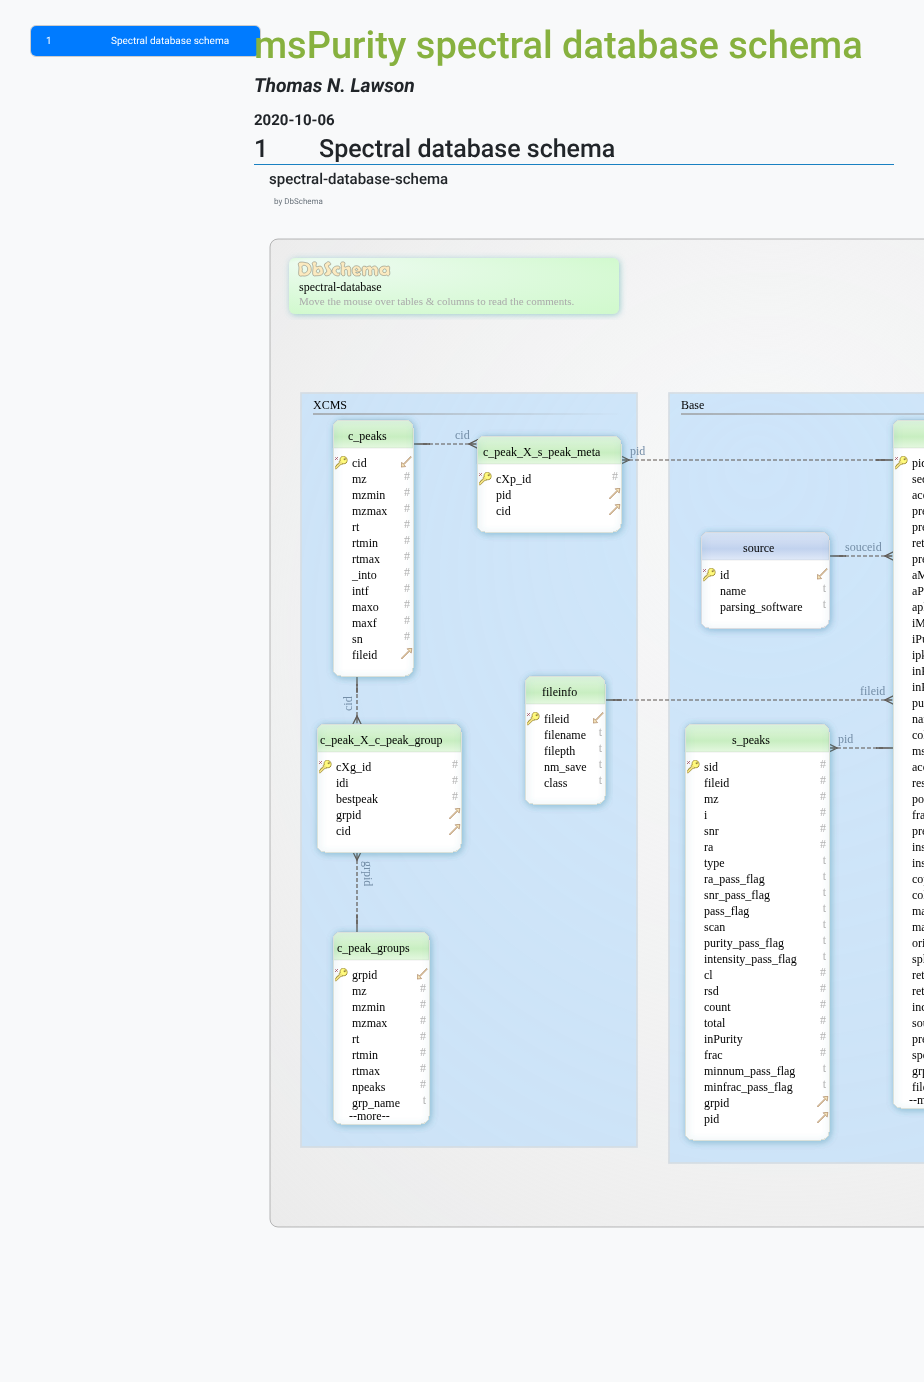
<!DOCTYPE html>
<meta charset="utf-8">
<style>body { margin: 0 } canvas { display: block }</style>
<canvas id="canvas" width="924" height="1382"></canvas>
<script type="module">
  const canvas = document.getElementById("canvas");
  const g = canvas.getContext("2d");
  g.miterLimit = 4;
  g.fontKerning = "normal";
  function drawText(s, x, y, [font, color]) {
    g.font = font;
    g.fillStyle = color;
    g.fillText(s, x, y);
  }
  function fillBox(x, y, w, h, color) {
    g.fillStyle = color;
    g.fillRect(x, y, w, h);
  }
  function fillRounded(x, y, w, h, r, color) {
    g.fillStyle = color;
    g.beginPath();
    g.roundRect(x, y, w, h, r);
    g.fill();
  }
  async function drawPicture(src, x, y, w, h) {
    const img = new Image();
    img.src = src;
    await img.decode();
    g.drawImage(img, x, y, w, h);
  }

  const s1 = ["10px Roboto", "#FFFFFF"];
  const s2 = ["500 38px Roboto", "#87B13F"];
  const s3 = ["italic bold 19.25px Roboto", "#212529"];
  const s4 = ["bold 15px Roboto", "#212529"];
  const s5 = ["500 25px Roboto", "#212529"];
  const s6 = ["500 15px Roboto", "#212529"];
  const s7 = ["8px Roboto", "#6C757D"];

  fillBox(0, 0, 924, 1382, "#F8F9FA");
  g.beginPath();
  g.roundRect(30.5, 25.5, 230, 31, 5.5);
  g.strokeStyle = "#CCCCCC";
  g.stroke();
  fillRounded(31, 26, 229, 30, 5, "#007BFF");
  drawText("1", 46, 44, s1);
  drawText("Spectral database schema", 111, 44, s1);
  drawText("msPurity spectral database schema", 254, 58, s2);
  drawText("Thomas N. Lawson", 254, 92, s3);
  drawText("2020-10-06", 254, 125, s4);
  fillBox(254, 164, 640, 1, "#1A81C2");
  drawText("1", 254, 157, s5);
  drawText("Spectral database schema", 319, 157, s5);
  drawText("spectral-database-schema", 269, 184, s6);
  drawText("by DbSchema", 274, 204, s7);
  await drawPicture("pic1.png", 269, 238, 655, 990);
</script>
